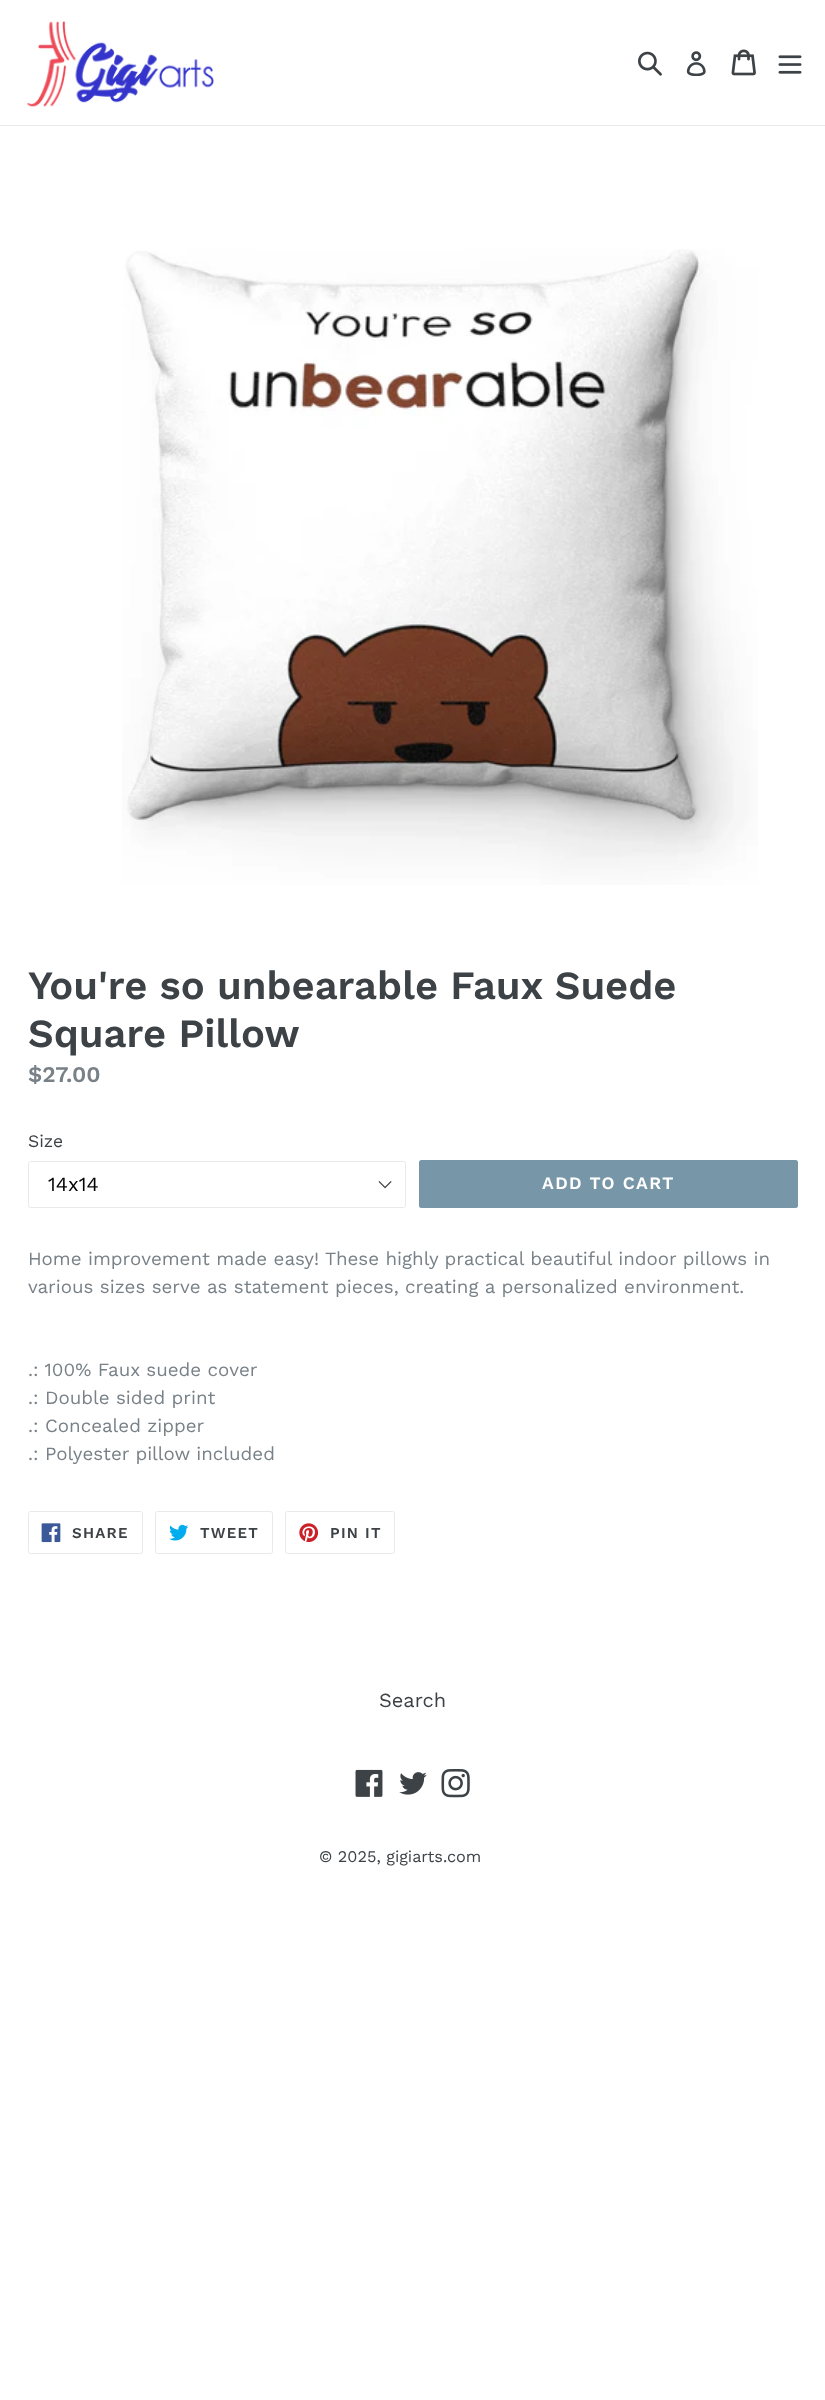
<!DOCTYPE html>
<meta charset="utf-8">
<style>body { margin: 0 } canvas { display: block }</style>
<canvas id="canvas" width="825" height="2400"></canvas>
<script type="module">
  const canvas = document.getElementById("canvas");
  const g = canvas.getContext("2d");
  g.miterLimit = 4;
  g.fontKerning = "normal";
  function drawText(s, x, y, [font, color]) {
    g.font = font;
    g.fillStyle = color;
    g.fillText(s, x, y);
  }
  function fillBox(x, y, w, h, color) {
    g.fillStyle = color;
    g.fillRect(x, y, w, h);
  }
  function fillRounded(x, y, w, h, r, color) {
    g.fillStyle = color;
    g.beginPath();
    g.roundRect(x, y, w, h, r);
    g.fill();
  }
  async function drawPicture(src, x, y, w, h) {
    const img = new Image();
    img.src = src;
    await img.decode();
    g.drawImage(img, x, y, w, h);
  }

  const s1 = ["600 40px Work Sans", "#3D4246"];
  const s2 = ["600 22.5px Work Sans", "#788188"];
  const s3 = ["17.5px Work Sans", "#3D4246"];
  const s4 = ["20px Work Sans", "#000000"];
  const s5 = ["600 17.5px Work Sans", "#FFFFFF"];
  const s6 = ["18.75px Work Sans", "#788188"];
  const s7 = ["600 15px Work Sans", "#3D4246"];
  const s8 = ["20px Work Sans", "#3D4246"];
  const s9 = ["16.25px Work Sans", "#3D4246"];

  fillBox(0, 0, 825, 2400, "#FFFFFF");
  fillBox(0, 125, 825, 1, "#E8E9EB");
  await drawPicture("pic1.png", 27, 20, 187, 87);
  await drawPicture("pic2.png", 638, 51, 24, 25);
  await drawPicture("pic3.png", 686, 51, 20, 25);
  await drawPicture("pic4.png", 731, 49, 25, 27);
  await drawPicture("pic5.png", 778, 55, 24, 19);
  await drawPicture("pic6.png", 122, 249, 636, 636);
  drawText("You're so unbearable Faux Suede", 28, 999, s1);
  drawText("Square Pillow", 28, 1047, s1);
  drawText("$27.00", 28, 1082, s2);
  drawText("Size", 28, 1147, s3);
  await drawPicture("pic7.png", 378, 1181, 14, 8);
  g.beginPath();
  g.roundRect(28.5, 1161.5, 377, 46, 2);
  g.strokeStyle = "#E8E9EB";
  g.stroke();
  drawText("14x14", 48, 1191, s4);
  fillRounded(419, 1160, 379, 48, 2.5, "#7796A8");
  g.letterSpacing = "1.4px";
  drawText("ADD TO CART", 542, 1189, s5);
  g.letterSpacing = "0px";
  drawText("Home improvement made easy! These highly practical beautiful indoor pillows in", 28, 1265, s6);
  drawText("various sizes serve as statement pieces, creating a personalized environment.", 28, 1293, s6);
  drawText(".: 100% Faux suede cover", 28, 1376, s6);
  drawText(".: Double sided print", 28, 1404, s6);
  drawText(".: Concealed zipper", 28, 1432, s6);
  drawText(".: Polyester pillow included", 28, 1460, s6);
  g.beginPath();
  g.roundRect(28.5, 1511.5, 114, 42, 2);
  g.stroke();
  await drawPicture("pic8.png", 41, 1523, 20, 20);
  g.letterSpacing = "1.25px";
  drawText("SHARE", 72, 1538, s7);
  g.beginPath();
  g.roundRect(155.5, 1511.5, 117, 42, 2);
  g.stroke();
  await drawPicture("pic9.png", 169, 1524, 20, 17);
  drawText("TWEET", 200, 1538, s7);
  g.beginPath();
  g.roundRect(285.5, 1511.5, 109, 42, 2);
  g.stroke();
  await drawPicture("pic10.png", 299, 1523, 20, 20);
  drawText("PIN IT", 330, 1538, s7);
  g.letterSpacing = "0px";
  drawText("Search", 379, 1707, s8);
  await drawPicture("pic11.png", 355, 1769, 28, 28);
  await drawPicture("pic12.png", 399, 1772, 28, 23);
  await drawPicture("pic13.png", 441, 1769, 29, 29);
  drawText("© 2025, gigiarts.com", 319, 1862, s9);
</script>
